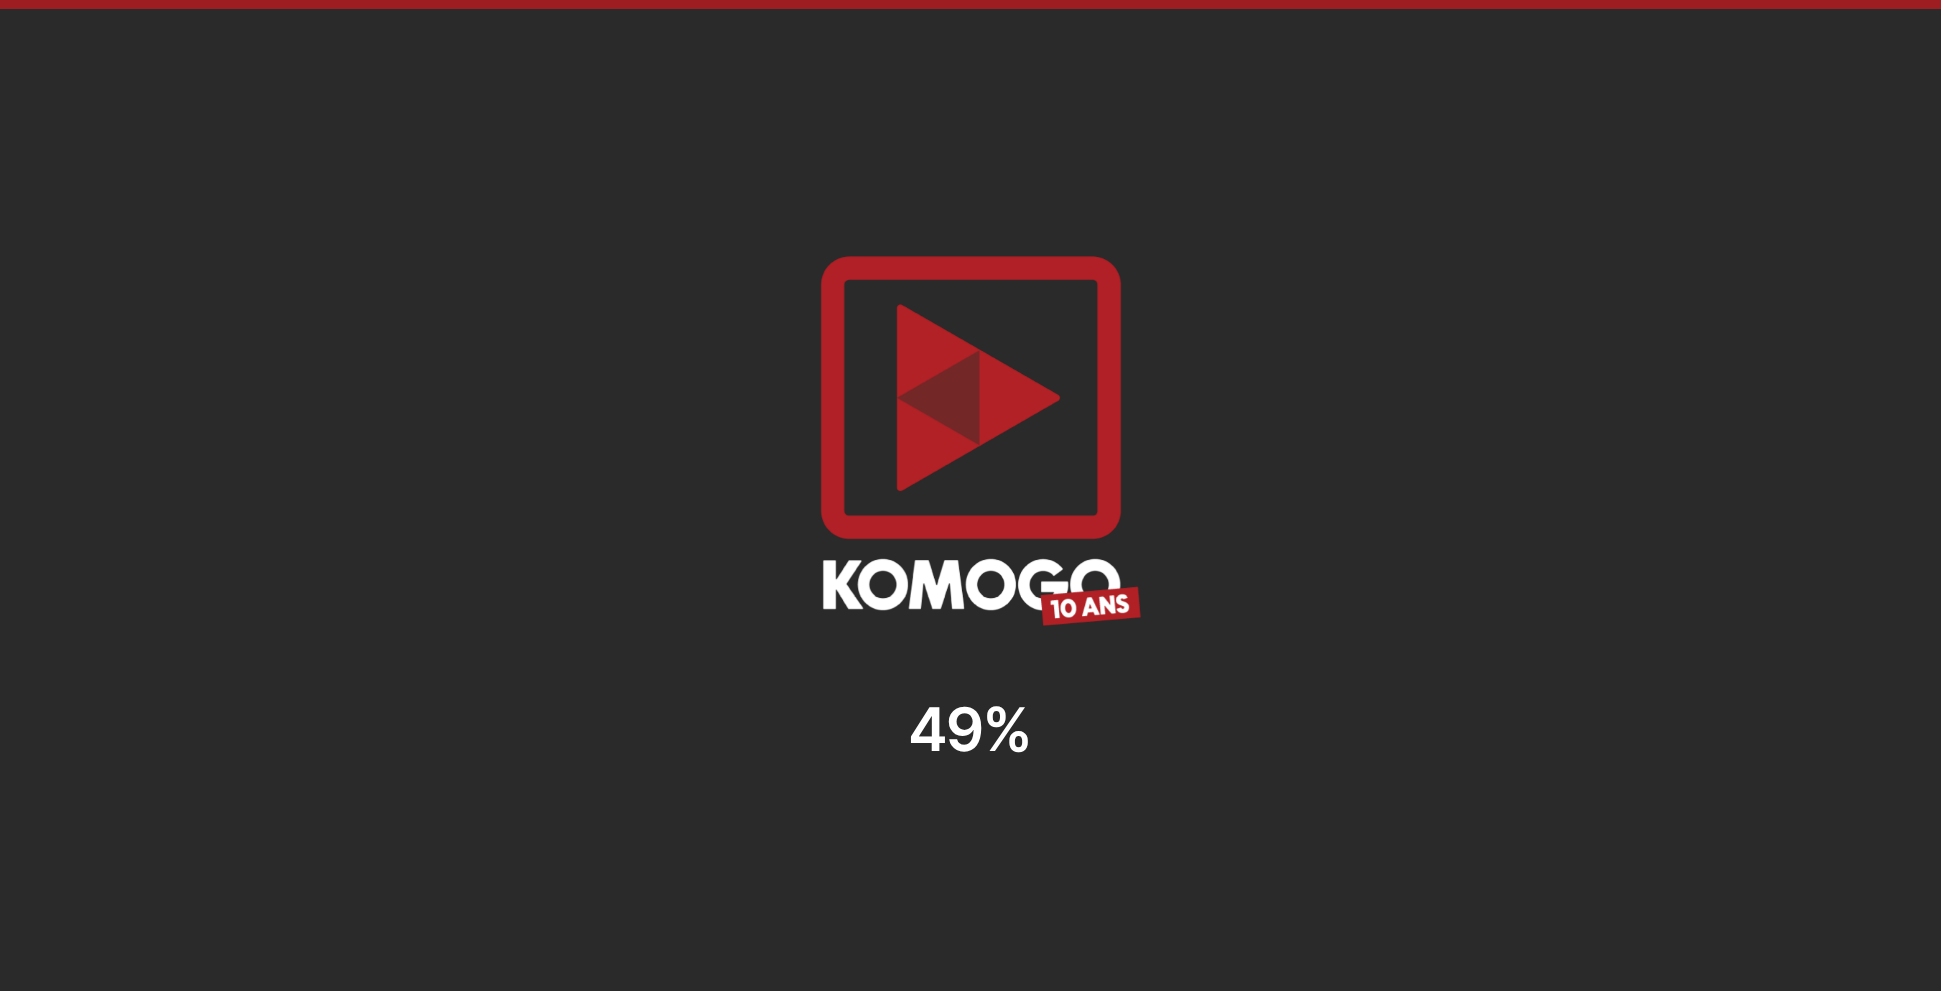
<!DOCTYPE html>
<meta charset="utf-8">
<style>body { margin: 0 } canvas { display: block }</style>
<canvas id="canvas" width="1941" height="991"></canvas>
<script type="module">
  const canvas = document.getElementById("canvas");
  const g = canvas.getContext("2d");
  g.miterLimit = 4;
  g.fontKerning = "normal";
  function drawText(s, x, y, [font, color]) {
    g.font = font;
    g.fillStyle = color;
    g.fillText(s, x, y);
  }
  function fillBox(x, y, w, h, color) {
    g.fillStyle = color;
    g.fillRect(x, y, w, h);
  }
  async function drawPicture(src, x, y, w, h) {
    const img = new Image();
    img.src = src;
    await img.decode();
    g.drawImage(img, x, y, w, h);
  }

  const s1 = ["600 60px Inter Tight", "#FFFFFF"];

  fillBox(0, 0, 1941, 991, "#2A2A2A");
  fillBox(0, 0, 1941, 9, "#9D1D21");
  await drawPicture("pic2.png", 821, 256, 320, 370);
  await drawPicture("pic1.png", 820, 256, 321, 370);
  drawText("49%", 909, 751, s1);
</script>
